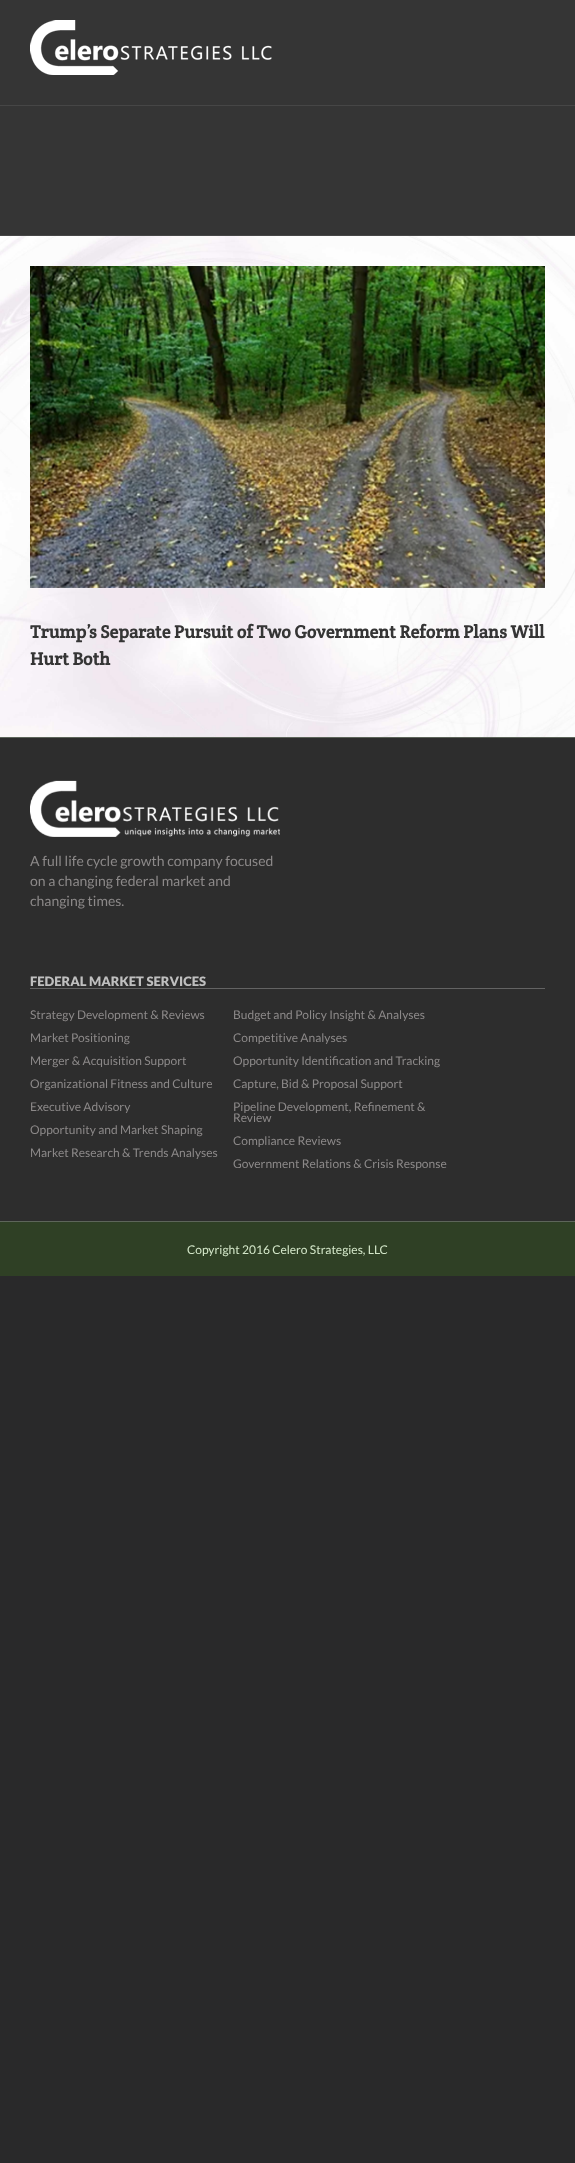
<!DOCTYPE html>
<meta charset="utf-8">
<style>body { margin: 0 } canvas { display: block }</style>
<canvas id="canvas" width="575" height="2163"></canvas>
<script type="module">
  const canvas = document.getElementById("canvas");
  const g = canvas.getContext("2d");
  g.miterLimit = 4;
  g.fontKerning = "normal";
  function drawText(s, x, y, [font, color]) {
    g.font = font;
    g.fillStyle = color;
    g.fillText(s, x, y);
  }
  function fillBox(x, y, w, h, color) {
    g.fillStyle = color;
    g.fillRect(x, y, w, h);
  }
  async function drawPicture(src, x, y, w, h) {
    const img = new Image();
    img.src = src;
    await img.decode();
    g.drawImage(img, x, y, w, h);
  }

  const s1 = ["bold 18px Crete Round", "#353535"];
  const s2 = ["14px Lato", "#8C8989"];
  const s3 = ["900 13px Lato", "#BFBFBF"];
  const s4 = ["12px Lato", "#8C8989"];
  const s5 = ["12px Lato", "#D4E7C9"];

  fillBox(0, 0, 575, 2163, "#29292A");
  fillBox(0, 0, 575, 105, "#353535");
  await drawPicture("pic1.png", 30, 20, 242, 55);
  fillBox(0, 106, 575, 129, "#353535");
  fillBox(0, 105, 575, 1, "#464646");
  fillBox(0, 235, 575, 1, "#464646");
  await drawPicture("pic2.png", 0, 236, 575, 501);
  await drawPicture("pic3.png", 30, 266, 515, 322);
  drawText("Trump’s Separate Pursuit of Two Government Reform Plans Will", 30, 638, s1);
  drawText("Hurt Both", 30, 665, s1);
  fillBox(0, 738, 575, 483, "#2D2D2D");
  fillBox(0, 737, 575, 1, "#5D655A");
  await drawPicture("pic4.png", 30, 780, 250, 57);
  drawText("A full life cycle growth company focused", 30, 866, s2);
  drawText("on a changing federal market and", 30, 886, s2);
  drawText("changing times.", 30, 906, s2);
  fillBox(30, 988, 515, 1, "#636363");
  drawText("FEDERAL MARKET SERVICES", 30, 986, s3);
  drawText("Strategy Development & Reviews", 30, 1019, s4);
  drawText("Market Positioning", 30, 1042, s4);
  drawText("Merger & Acquisition Support", 30, 1065, s4);
  drawText("Organizational Fitness and Culture", 30, 1088, s4);
  drawText("Executive Advisory", 30, 1111, s4);
  drawText("Opportunity and Market Shaping", 30, 1134, s4);
  drawText("Market Research & Trends Analyses", 30, 1157, s4);
  drawText("Budget and Policy Insight & Analyses", 233, 1019, s4);
  drawText("Competitive Analyses", 233, 1042, s4);
  drawText("Opportunity Identification and Tracking", 233, 1065, s4);
  drawText("Capture, Bid & Proposal Support", 233, 1088, s4);
  drawText("Pipeline Development, Refinement &", 233, 1111, s4);
  drawText("Review", 233, 1122, s4);
  drawText("Compliance Reviews", 233, 1145, s4);
  drawText("Government Relations & Crisis Response", 233, 1168, s4);
  fillBox(0, 1222, 575, 54, "#2F4025");
  fillBox(0, 1221, 575, 1, "#5D655A");
  drawText("Copyright 2016 Celero Strategies, LLC", 187, 1254, s5);
</script>
